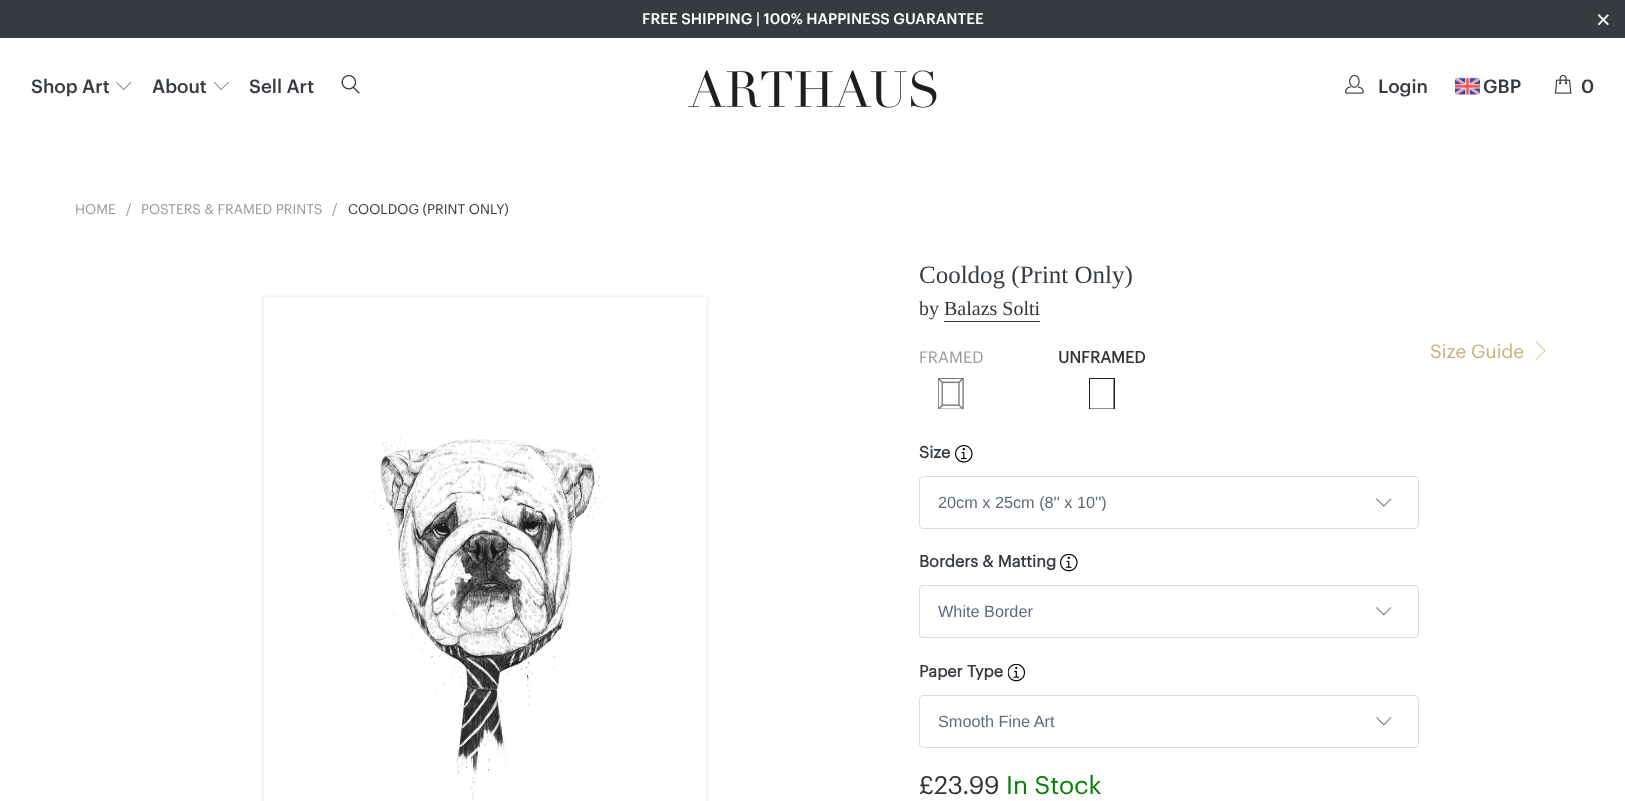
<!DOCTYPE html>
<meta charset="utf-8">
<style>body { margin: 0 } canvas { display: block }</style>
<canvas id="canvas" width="1625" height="801"></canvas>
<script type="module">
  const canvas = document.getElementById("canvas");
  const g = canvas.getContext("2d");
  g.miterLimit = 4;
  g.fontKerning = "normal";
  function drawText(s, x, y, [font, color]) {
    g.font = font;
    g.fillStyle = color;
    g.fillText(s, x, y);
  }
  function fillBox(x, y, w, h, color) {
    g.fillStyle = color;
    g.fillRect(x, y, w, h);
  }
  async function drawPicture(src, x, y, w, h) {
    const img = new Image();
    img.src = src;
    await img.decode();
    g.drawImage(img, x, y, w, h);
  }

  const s1 = ["500 15px Graphik", "#FFFFFF"];
  const s2 = ["25px Liberation Sans", "#FFFFFF"];
  const s3 = ["500 18.75px Graphik", "#353B40"];
  const s4 = ["13.75px Graphik", "#999999"];
  const s5 = ["13.75px Graphik", "#353B40"];
  const s6 = ["25px Liberation Serif", "#353B40"];
  const s7 = ["20px Liberation Serif", "#353B40"];
  const s8 = ["20px Liberation Serif", "#333333"];
  const s9 = ["16.25px Graphik", "#999999"];
  const s10 = ["bold 16.25px Graphik", "#333333"];
  const s11 = ["18.75px Graphik", "#C7B078"];
  const s12 = ["bold 16.25px Graphik", "#353B40"];
  const s13 = ["16.25px Liberation Sans", "#5F6A7D"];
  const s14 = ["25px Graphik", "#333333"];
  const s15 = ["25px Graphik", "#008000"];

  fillBox(0, 0, 1625, 801, "#FFFFFF");
  fillBox(0, 0, 1625, 38, "#353B40");
  drawText("FREE SHIPPING | 100% HAPPINESS GUARANTEE", 642, 24, s1);
  drawText("×", 1596, 28, s2);
  drawText("Shop Art", 31, 93, s3);
  await drawPicture("pic1.png", 116, 82, 16, 8);
  drawText("About", 152, 93, s3);
  await drawPicture("pic2.png", 213, 82, 16, 8);
  drawText("Sell Art", 249, 93, s3);
  await drawPicture("pic3.png", 341, 74, 19, 20);
  await drawPicture("pic4.png", 688, 70, 249, 38);
  await drawPicture("pic5.png", 1345, 74, 19, 20);
  drawText("Login", 1378, 93, s3);
  await drawPicture("pic6.png", 1455, 77, 25, 18);
  drawText("GBP", 1483, 93, s3);
  await drawPicture("pic7.png", 1554, 74, 18, 20);
  drawText("0", 1581, 93, s3);
  drawText("HOME", 75, 214, s4);
  drawText("/", 126, 214, s4);
  drawText("POSTERS & FRAMED PRINTS", 141, 214, s4);
  drawText("/", 332, 214, s4);
  drawText("COOLDOG (PRINT ONLY)", 348, 214, s5);
  await drawPicture("pic8.png", 261, 294, 450, 507);
  drawText("Cooldog (Print Only)", 919, 283, s6);
  drawText("by", 919, 315, s7);
  drawText("Balazs Solti", 944, 315, s8);
  fillBox(944, 321, 96, 1, "#333333");
  drawText("FRAMED", 919, 363, s9);
  await drawPicture("pic9.png", 938, 378, 26, 31);
  drawText("UNFRAMED", 1058, 363, s10);
  g.save();
  g.beginPath();
  g.rect(1089, 378, 26, 31);
  g.clip();
  g.fillStyle = "#1D1D1B";
  g.beginPath();
  g.moveTo(1089, 377.5);
  g.lineTo(1089, 410);
  g.lineTo(1115, 410);
  g.lineTo(1115, 377.5);
  g.closePath();
  g.moveTo(1113.5, 408.5);
  g.lineTo(1090, 408.5);
  g.lineTo(1090, 379);
  g.lineTo(1113.5, 379);
  g.closePath();
  g.fill();
  g.restore();
  drawText("Size Guide", 1430, 358, s11);
  g.beginPath();
  g.moveTo(1536, 360);
  g.lineTo(1535.5, 359.5);
  g.lineTo(1544.5, 350.5);
  g.lineTo(1535.5, 341.5);
  g.lineTo(1536, 341);
  g.lineTo(1545.5, 350.5);
  g.closePath();
  g.fill();
  drawText("Size", 919, 458, s12);
  await drawPicture("pic10.png", 955, 445, 18, 18);
  await drawPicture("pic11.png", 1376, 498, 16, 9);
  g.beginPath();
  g.roundRect(919.5, 476.5, 499, 52, 3.5);
  g.strokeStyle = "#D9DBDC";
  g.stroke();
  g.save();
  g.beginPath();
  g.rect(938, 493, 462, 18);
  g.clip();
  drawText("20cm x 25cm (8'' x 10'')", 938, 508, s13);
  g.restore();
  drawText("Borders & Matting", 919, 567, s12);
  await drawPicture("pic12.png", 1060, 554, 18, 18);
  await drawPicture("pic13.png", 1376, 606, 16, 10);
  g.beginPath();
  g.roundRect(919.5, 585.5, 499, 52, 3.5);
  g.stroke();
  drawText("White Border", 938, 617, s13);
  drawText("Paper Type", 919, 677, s12);
  await drawPicture("pic14.png", 1008, 664, 18, 18);
  await drawPicture("pic13.png", 1376, 716, 16, 10);
  g.beginPath();
  g.roundRect(919.5, 695.5, 499, 52, 3.5);
  g.stroke();
  drawText("Smooth Fine Art", 938, 727, s13);
  drawText("£23.99", 919, 794, s14);
  drawText("In Stock", 1006, 794, s15);
</script>
